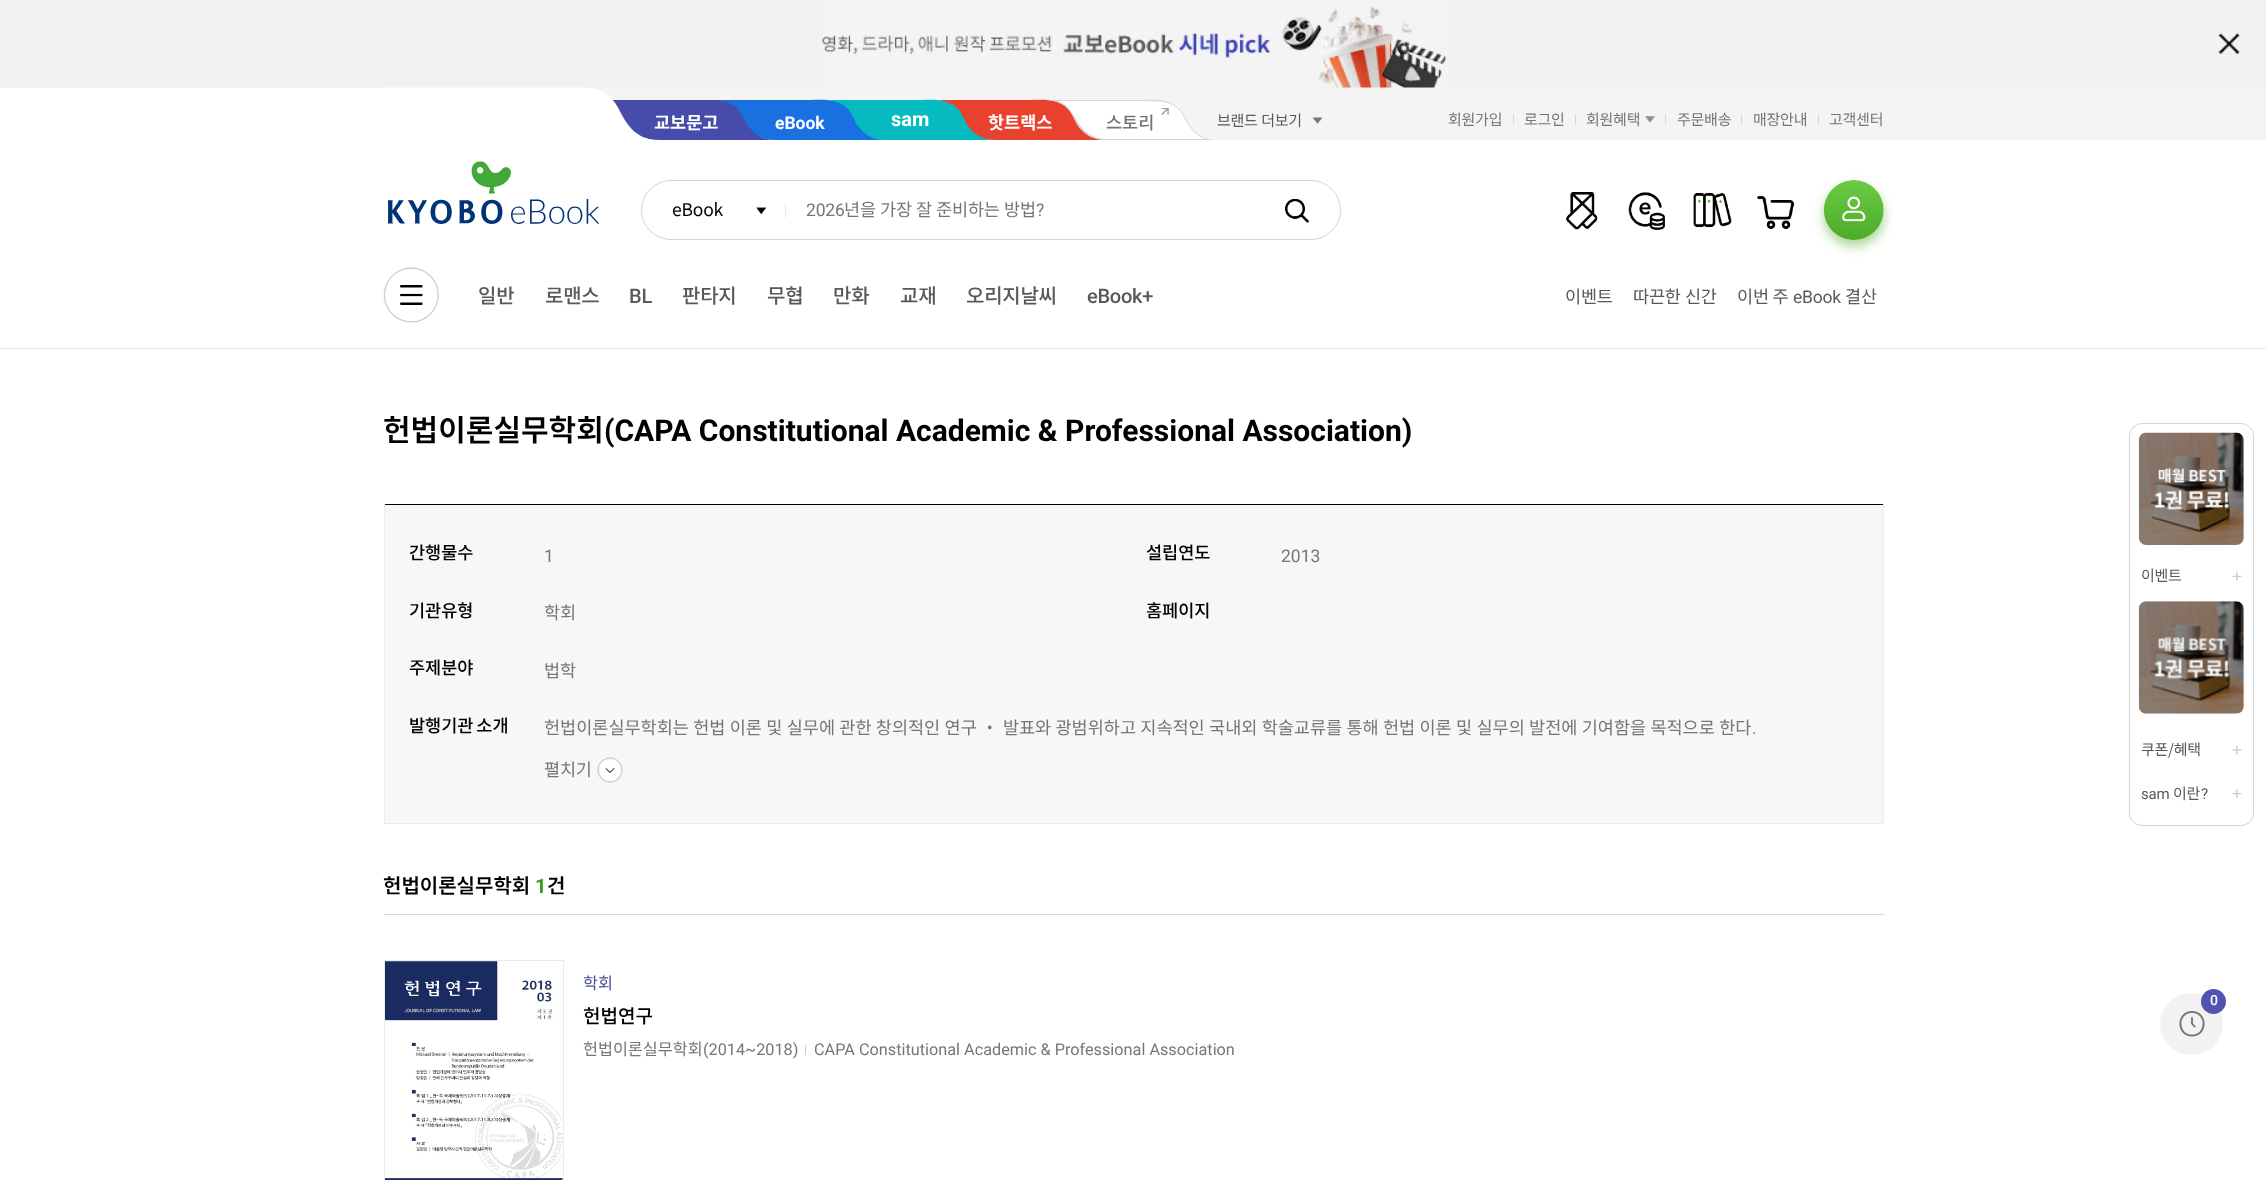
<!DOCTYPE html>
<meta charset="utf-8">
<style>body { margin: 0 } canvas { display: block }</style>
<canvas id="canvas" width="2266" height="1180"></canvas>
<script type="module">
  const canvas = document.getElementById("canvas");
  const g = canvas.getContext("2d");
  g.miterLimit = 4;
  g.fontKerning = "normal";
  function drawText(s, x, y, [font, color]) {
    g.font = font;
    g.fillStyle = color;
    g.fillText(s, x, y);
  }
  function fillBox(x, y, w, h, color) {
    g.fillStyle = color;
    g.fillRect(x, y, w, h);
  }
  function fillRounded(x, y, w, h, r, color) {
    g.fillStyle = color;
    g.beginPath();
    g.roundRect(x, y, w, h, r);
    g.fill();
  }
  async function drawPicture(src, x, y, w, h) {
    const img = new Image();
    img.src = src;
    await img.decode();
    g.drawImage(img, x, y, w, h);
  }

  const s1 = ["bold 17.5px Noto Sans KR", "#FFFFFF"];
  const s2 = ["bold 17.5px Roboto", "#FFFFFF"];
  const s3 = ["bold 20px Roboto", "#FFFFFF"];
  const s4 = ["500 17.5px Noto Sans KR", "#767676"];
  const s5 = ["15px Noto Sans KR", "#595959"];
  const s6 = ["15px Noto Sans KR", "#767676"];
  const s7 = ["17.5px Noto Sans KR", "#000000"];
  const s8 = ["17.5px Roboto", "#767676"];
  const s9 = ["17.5px Noto Sans KR", "#767676"];
  const s10 = ["500 20px Noto Sans KR", "#595959"];
  const s11 = ["500 20px Roboto", "#595959"];
  const s12 = ["17.5px Noto Sans KR", "#595959"];
  const s13 = ["17.5px Roboto", "#595959"];
  const s14 = ["600 30px Noto Sans KR", "#000000"];
  const s15 = ["bold 30px Roboto", "#000000"];
  const s16 = ["500 17.5px Noto Sans KR", "#000000"];
  const s17 = ["600 20px Noto Sans KR", "#000000"];
  const s18 = ["bold 20px Roboto", "#3C9A17"];
  const s19 = ["16.25px Noto Sans KR", "#474C98"];
  const s20 = ["500 19px Noto Sans KR", "#000000"];
  const s21 = ["16.25px Noto Sans KR", "#767676"];
  const s22 = ["16.25px Roboto", "#767676"];
  const s23 = ["15px Roboto", "#595959"];
  const s24 = ["500 14px Roboto", "#FFFFFF"];

  fillBox(0, 0, 2266, 1180, "#FFFFFF");
  fillBox(0, 0, 2266, 88, "#F2F2F2");
  await drawPicture("pic1.png", 822, 0, 628, 88);
  await drawPicture("pic2.png", 2218, 33, 22, 21);
  fillBox(0, 348, 2266, 1, "#EAEAEA");
  fillBox(591, 88, 1675, 52, "#F4F4F4");
  g.fillStyle = "#474BAA";
  g.beginPath();
  g.moveTo(613, 140);
  g.lineTo(777, 140);
  g.bezierCurveTo(763, 140, 754, 136, 745, 116);
  g.bezierCurveTo(737, 101, 722, 100, 718, 100);
  g.lineTo(613, 100);
  g.closePath();
  g.fill();
  drawText("교보문고", 654, 129, s1);
  await drawPicture("pic3.png", 381, 87, 278, 53);
  g.fillStyle = "#1970E1";
  g.beginPath();
  g.moveTo(887, 140);
  g.bezierCurveTo(874, 140, 865, 134, 858, 123);
  g.bezierCurveTo(852, 113, 850, 106, 838, 102);
  g.bezierCurveTo(829, 99, 817, 100, 809, 100);
  g.lineTo(718, 100);
  g.bezierCurveTo(726, 101, 734, 104, 739, 110);
  g.bezierCurveTo(742, 114, 744, 119, 746, 123);
  g.bezierCurveTo(753, 134, 762, 140, 776, 140);
  g.closePath();
  g.fill();
  drawText("eBook", 775, 129, s2);
  g.fillStyle = "#06BBC0";
  g.beginPath();
  g.moveTo(997, 140);
  g.bezierCurveTo(984, 140, 975, 134, 968, 123);
  g.bezierCurveTo(962, 113, 960, 106, 948, 102);
  g.bezierCurveTo(939, 99, 927, 100, 919, 100);
  g.lineTo(828, 100);
  g.bezierCurveTo(836, 101, 844, 104, 849, 110);
  g.bezierCurveTo(852, 114, 854, 119, 856, 123);
  g.bezierCurveTo(863, 134, 872, 140, 886, 140);
  g.closePath();
  g.fill();
  drawText("sam", 891, 126, s3);
  g.fillStyle = "#E8422F";
  g.beginPath();
  g.moveTo(1107, 140);
  g.bezierCurveTo(1094, 140, 1085, 134, 1078, 123);
  g.bezierCurveTo(1072, 113, 1070, 106, 1058, 102);
  g.bezierCurveTo(1049, 99, 1037, 100, 1029, 100);
  g.lineTo(938, 100);
  g.bezierCurveTo(946, 101, 954, 104, 959, 110);
  g.bezierCurveTo(962, 114, 964, 119, 966, 123);
  g.bezierCurveTo(973, 134, 982, 140, 996, 140);
  g.closePath();
  g.fill();
  drawText("핫트랙스", 988, 129, s1);
  g.fillStyle = "#D5D5D5";
  g.beginPath();
  g.moveTo(1217, 140);
  g.bezierCurveTo(1204, 140, 1195, 134, 1188, 123);
  g.bezierCurveTo(1182, 113, 1180, 106, 1168, 102);
  g.bezierCurveTo(1159, 99, 1147, 100, 1139, 100);
  g.lineTo(1048, 100);
  g.bezierCurveTo(1056, 101, 1064, 104, 1069, 110);
  g.bezierCurveTo(1072, 114, 1074, 119, 1076, 123);
  g.bezierCurveTo(1083, 134, 1092, 140, 1106, 140);
  g.closePath();
  g.fill();
  g.fillStyle = "#FFFFFF";
  g.beginPath();
  g.moveTo(1200, 136);
  g.lineTo(1207, 139);
  g.lineTo(1106, 139);
  g.bezierCurveTo(1093, 140, 1085, 134, 1077, 122);
  g.bezierCurveTo(1072, 114, 1070, 107, 1060, 102);
  g.lineTo(1055, 101);
  g.lineTo(1126, 101);
  g.bezierCurveTo(1137, 101, 1152, 100, 1162, 101);
  g.bezierCurveTo(1167, 102, 1172, 103, 1176, 106);
  g.bezierCurveTo(1183, 112, 1184, 117, 1188, 124);
  g.bezierCurveTo(1191, 128, 1195, 133, 1200, 136);
  g.closePath();
  g.fill();
  g.save();
  g.beginPath();
  g.moveTo(1217, 140);
  g.lineTo(1105.5, 140);
  g.bezierCurveTo(1102.5, 140, 1099, 139.5, 1096, 139);
  g.bezierCurveTo(1093, 138.5, 1090, 137, 1087.5, 135.5);
  g.bezierCurveTo(1082, 132, 1077.5, 126, 1072.5, 116);
  g.bezierCurveTo(1070, 110.5, 1065, 105.5, 1059, 103);
  g.bezierCurveTo(1055, 101, 1051, 100, 1047, 100);
  g.lineTo(1157.5, 100);
  g.bezierCurveTo(1162, 100, 1166, 101, 1169.5, 102.5);
  g.bezierCurveTo(1172.5, 103.5, 1175.5, 105, 1177.5, 107.5);
  g.bezierCurveTo(1180.5, 110, 1183, 113, 1184.5, 116);
  g.bezierCurveTo(1189, 126, 1194, 132, 1199.5, 135.5);
  g.bezierCurveTo(1202, 137, 1205, 138.5, 1208, 139);
  g.bezierCurveTo(1211, 139.5, 1214, 140, 1217, 140);
  g.closePath();
  g.clip();
  g.beginPath();
  g.moveTo(1200, 136);
  g.lineTo(1207.5, 139.5);
  g.lineTo(1106.5, 139.5);
  g.bezierCurveTo(1093, 139.5, 1084.5, 134, 1077.5, 122.5);
  g.bezierCurveTo(1072, 114, 1069.5, 107, 1060, 102.5);
  g.lineTo(1055.5, 100.5);
  g.lineTo(1140.5, 100.5);
  g.bezierCurveTo(1158, 100.5, 1175, 98.5, 1184.5, 116.5);
  g.bezierCurveTo(1188.5, 124, 1192.5, 131.5, 1200, 136);
  g.closePath();
  g.strokeStyle = "#D5D5D5";
  g.lineWidth = 1.2;
  g.stroke();
  g.restore();
  await drawPicture("pic4.png", 1161, 108, 8, 7);
  drawText("스토리", 1106, 129, s4);
  g.letterSpacing = "-0.25px";
  g.wordSpacing = "0.4px";
  drawText("브랜드 더보기", 1217, 126, s5);
  await drawPicture("pic5.png", 1312, 117, 11, 7);
  g.wordSpacing = "0px";
  drawText("회원가입", 1448, 125, s6);
  fillBox(1513, 114, 1, 10, "#D5D5D5");
  drawText("로그인", 1524, 125, s6);
  fillBox(1575, 114, 1, 10, "#D5D5D5");
  drawText("회원혜택", 1586, 125, s6);
  await drawPicture("pic6.png", 1645, 116, 10, 7);
  fillBox(1665, 114, 1, 10, "#D5D5D5");
  drawText("주문배송", 1677, 125, s6);
  fillBox(1741, 114, 1, 10, "#D5D5D5");
  drawText("매장안내", 1753, 125, s6);
  fillBox(1818, 114, 1, 10, "#D5D5D5");
  drawText("고객센터", 1829, 125, s6);
  await drawPicture("pic7.png", 387, 161, 213, 63);
  g.beginPath();
  g.roundRect(641.5, 180.5, 699, 59, 29.5);
  g.strokeStyle = "#D5D5D5";
  g.stroke();
  g.letterSpacing = "-0.2px";
  drawText("eBook", 672, 216, s7);
  await drawPicture("pic8.png", 756, 207, 11, 8);
  fillBox(785, 203, 1, 15, "#EAEAEA");
  drawText("2026", 806, 216, s8);
  g.wordSpacing = "0.5px";
  drawText("년을 가장 잘 준비하는 방법", 844, 216, s9);
  g.wordSpacing = "0px";
  drawText("?", 1036, 216, s8);
  await drawPicture("pic9.png", 1285, 198, 24, 25);
  await drawPicture("pic10.png", 1566, 192, 32, 38);
  await drawPicture("pic11.png", 1628, 192, 37, 38);
  await drawPicture("pic12.png", 1693, 193, 39, 34);
  await drawPicture("pic13.png", 1757, 195, 38, 35);
  g.fillStyle = "rgba(77, 172, 39, 0.5)";
  g.filter = "blur(6px)";
  g.beginPath();
  g.roundRect(1824, 186, 60, 60, 30);
  g.fill();
  g.filter = "none";
  await drawPicture("pic14.png", 1823, 180, 61, 60);
  await drawPicture("pic15.png", 383, 267, 56, 56);
  g.letterSpacing = "-0.25px";
  drawText("일반", 478, 303, s10);
  drawText("로맨스", 545, 303, s10);
  drawText("BL", 629, 303, s11);
  drawText("판타지", 682, 303, s10);
  drawText("무협", 767, 303, s10);
  drawText("만화", 833, 303, s10);
  drawText("교재", 900, 303, s10);
  drawText("오리지날씨", 966, 303, s10);
  drawText("eBook+", 1087, 303, s11);
  g.letterSpacing = "-0.2px";
  drawText("이벤트", 1565, 303, s12);
  g.wordSpacing = "0.5px";
  drawText("따끈한 신간", 1633, 303, s12);
  g.wordSpacing = "0px";
  drawText("이번 주", 1737, 303, s12);
  drawText("eBook", 1793, 303, s13);
  drawText("결산", 1845, 303, s12);
  g.letterSpacing = "0px";
  drawText("헌법이론실무학회", 383, 441, s14);
  drawText("(CAPA Constitutional Academic & Professional Association)", 604, 441, s15);
  fillBox(385, 505, 1498, 318, "#F7F7F7");
  fillBox(384, 504, 1500, 1, "#000000");
  fillBox(1883, 504, 1, 320, "#EAEAEA");
  fillBox(384, 823, 1500, 1, "#EAEAEA");
  fillBox(384, 504, 1, 320, "#EAEAEA");
  drawText("간행물수", 409, 559, s16);
  drawText("1", 544, 562, s8);
  drawText("설립연도", 1146, 559, s16);
  drawText("2013", 1281, 562, s8);
  drawText("기관유형", 409, 617, s16);
  drawText("학회", 544, 619, s9);
  drawText("홈페이지", 1146, 617, s16);
  drawText("주제분야", 409, 674, s16);
  drawText("법학", 544, 677, s9);
  g.wordSpacing = "-1px";
  drawText("발행기관 소개", 409, 732, s16);
  g.wordSpacing = "0.4px";
  drawText("헌법이론실무학회는 헌법 이론 및 실무에 관한 창의적인 연구 ・ 발표와 광범위하고 지속적인 국내외 학술교류를 통해 헌법 이론 및 실무의 발전에 기여함을 목적으로 한다", 544, 734, s9);
  g.wordSpacing = "0px";
  drawText(".", 1752, 734, s8);
  g.letterSpacing = "-0.2px";
  drawText("펼치기", 544, 776, s9);
  await drawPicture("pic16.png", 597, 757, 26, 26);
  fillBox(384, 914, 1500, 1, "#D5D5D5");
  g.letterSpacing = "0px";
  drawText("헌법이론실무학회", 383, 893, s17);
  drawText("1", 535, 893, s18);
  drawText("건", 547, 893, s17);
  g.strokeStyle = "#EAEAEA";
  g.strokeRect(384.5, 960.5, 179, 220);
  await drawPicture("pic17.png", 385, 961, 178, 219);
  drawText("학회", 583, 989, s19);
  drawText("헌법연구", 583, 1023, s20);
  drawText("헌법이론실무학회", 583, 1055, s21);
  drawText("(2014~2018)", 703, 1055, s22);
  fillBox(805, 1045, 1, 10, "#CCCCCC");
  drawText("CAPA Constitutional Academic & Professional Association", 814, 1055, s22);
  g.beginPath();
  g.roundRect(2129.5, 423.5, 124, 402, 12.5);
  g.strokeStyle = "#D5D5D5";
  g.stroke();
  fillRounded(2139, 433, 105, 112, 8, "#EAEAEA");
  await drawPicture("pic18.png", 2138, 432, 106, 113);
  g.letterSpacing = "-0.25px";
  drawText("이벤트", 2141, 581, s5);
  await drawPicture("pic19.png", 2232, 571, 10, 10);
  fillRounded(2139, 601, 105, 113, 8, "#EAEAEA");
  await drawPicture("pic20.png", 2138, 601, 106, 113);
  drawText("쿠폰/혜택", 2141, 755, s5);
  await drawPicture("pic21.png", 2232, 745, 10, 10);
  drawText("sam", 2141, 799, s23);
  drawText("이란", 2173, 799, s5);
  drawText("?", 2201, 799, s23);
  await drawPicture("pic22.png", 2232, 789, 10, 10);
  fillRounded(2160, 993, 63, 62, 31, "#F2F2F2");
  g.beginPath();
  g.moveTo(2192, 1035.5);
  g.bezierCurveTo(2207.5, 1035.5, 2207.5, 1012, 2192, 1012);
  g.bezierCurveTo(2176.5, 1012, 2176.5, 1035.5, 2192, 1035.5);
  g.closePath();
  g.strokeStyle = "#767676";
  g.lineWidth = 1.9;
  g.stroke();
  g.fillStyle = "#5055B1";
  g.beginPath();
  g.arc(2213.5, 1001.5, 12.5, 0, Math.PI * 2);
  g.fill();
  g.letterSpacing = "0px";
  drawText("0", 2210, 1005, s24);
  g.beginPath();
  g.moveTo(2192, 1018);
  g.lineTo(2192, 1023.5);
  g.lineTo(2194.5, 1026.5);
  g.lineCap = "round";
  g.stroke();
</script>
